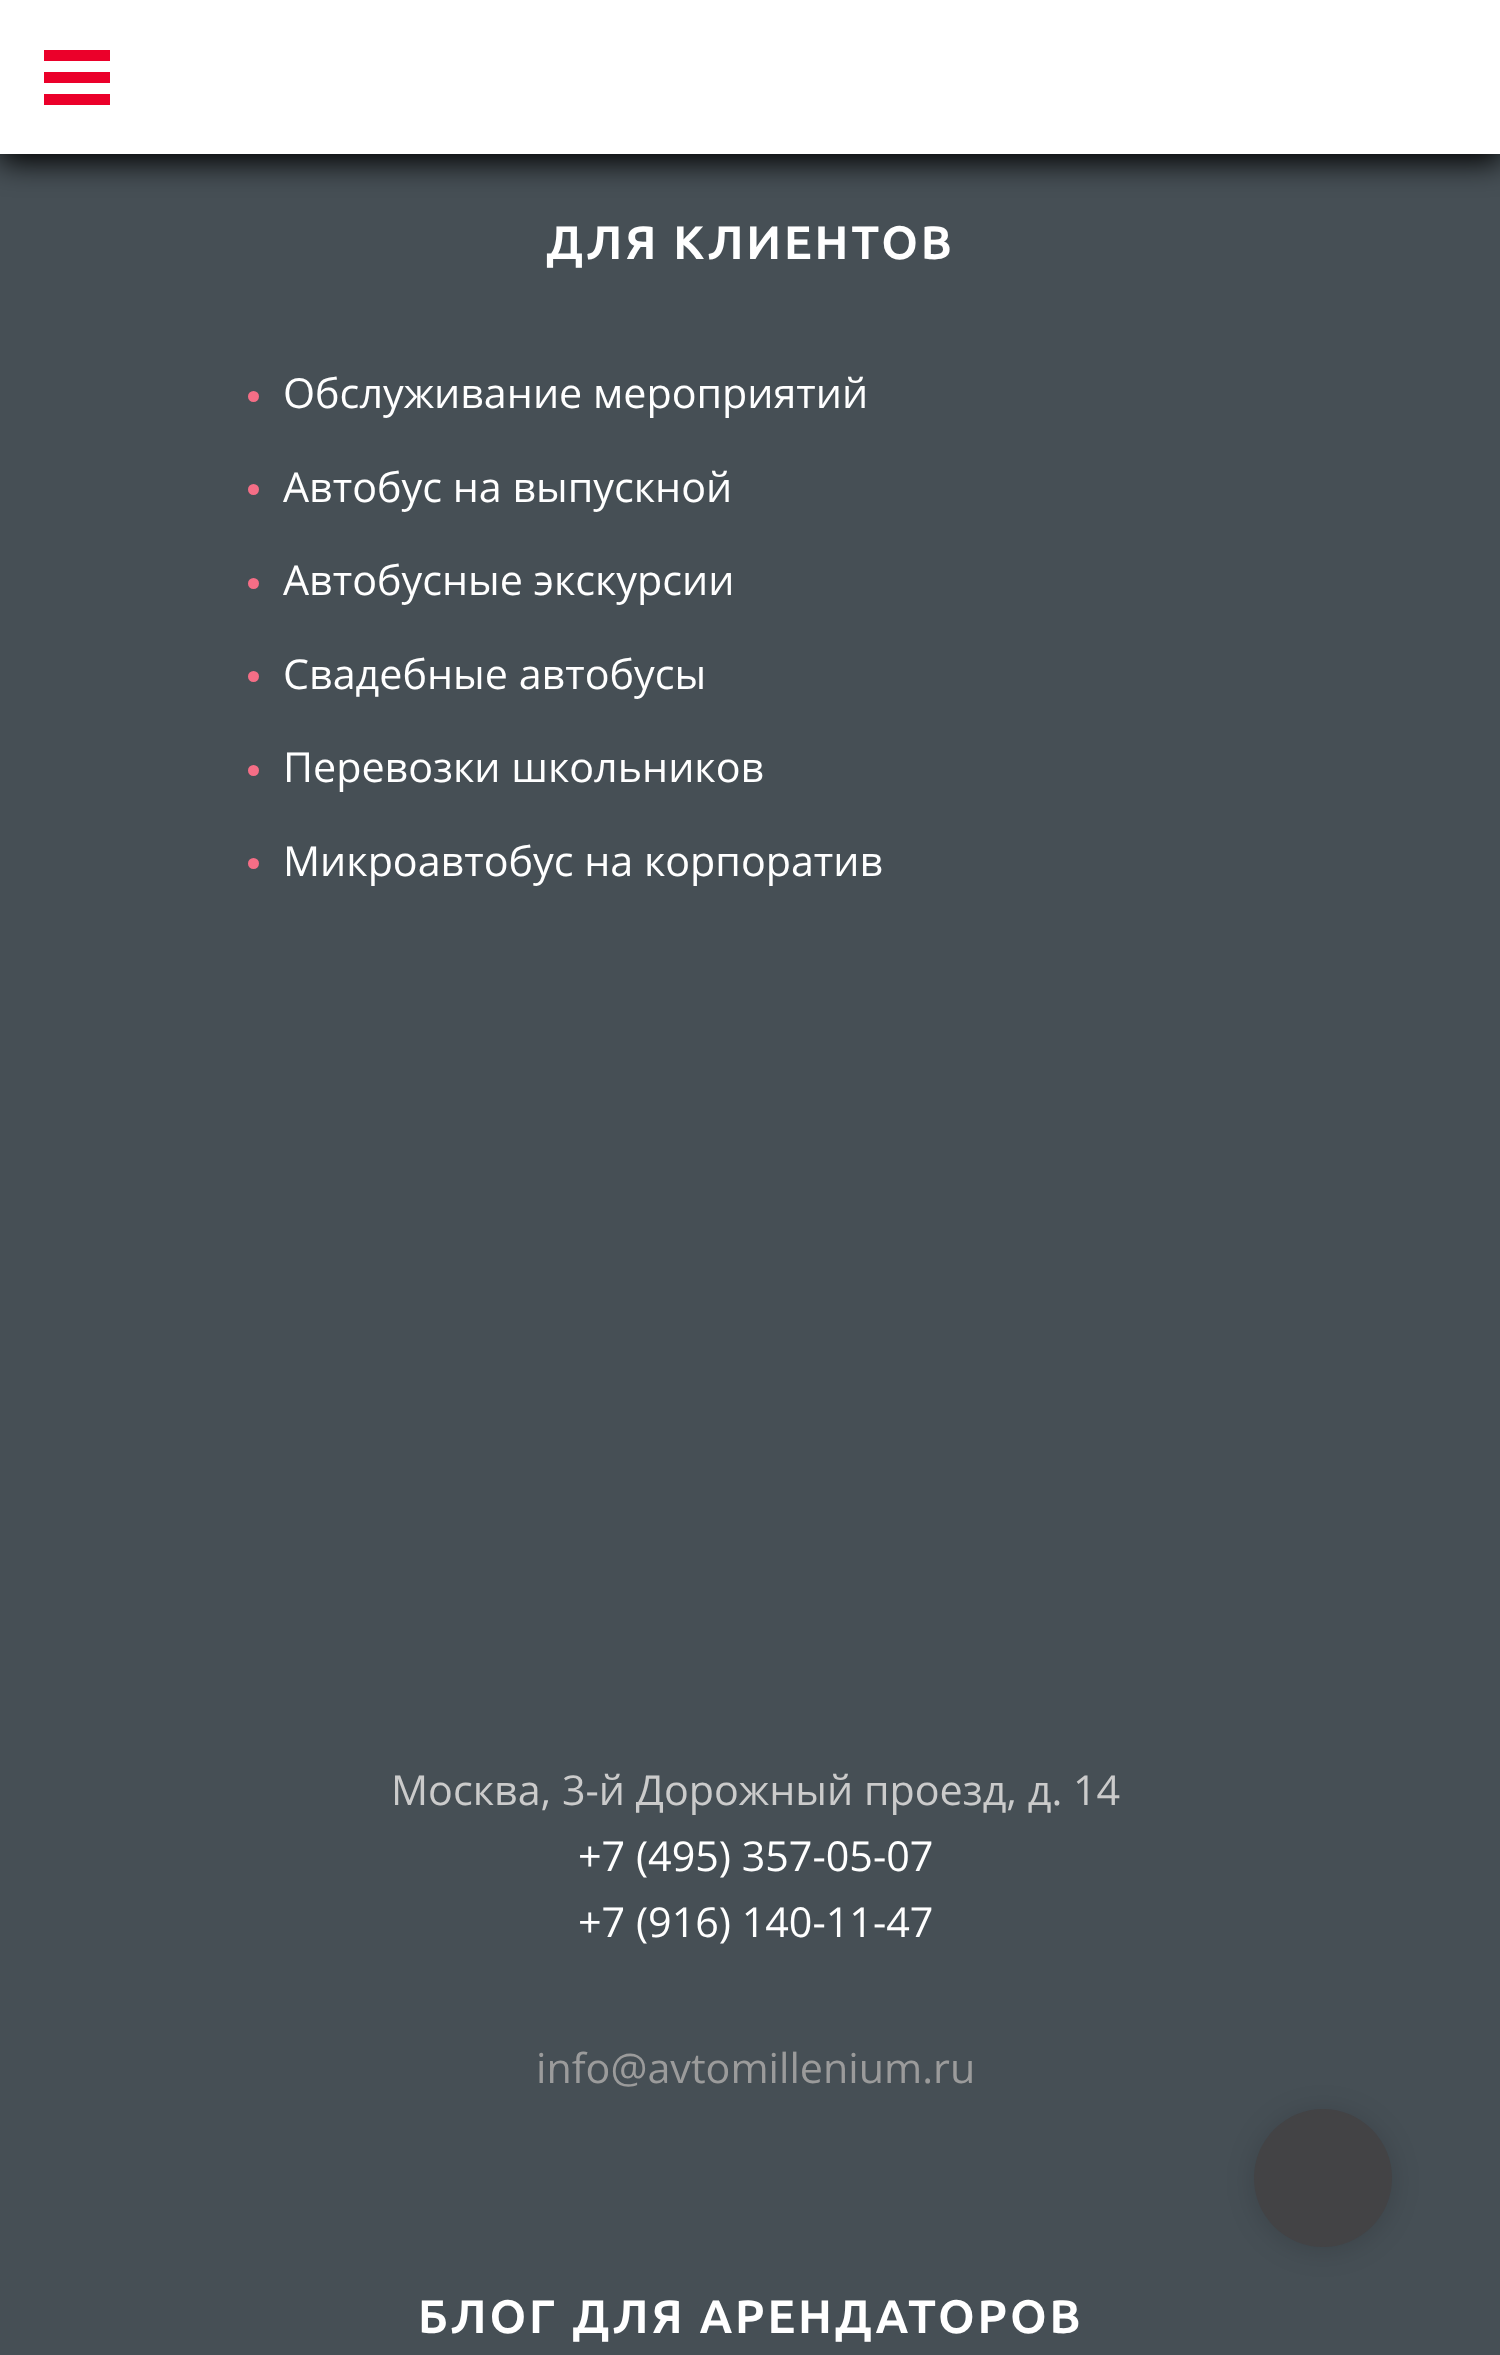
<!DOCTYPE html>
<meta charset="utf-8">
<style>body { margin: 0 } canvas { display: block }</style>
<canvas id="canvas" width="1500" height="2355"></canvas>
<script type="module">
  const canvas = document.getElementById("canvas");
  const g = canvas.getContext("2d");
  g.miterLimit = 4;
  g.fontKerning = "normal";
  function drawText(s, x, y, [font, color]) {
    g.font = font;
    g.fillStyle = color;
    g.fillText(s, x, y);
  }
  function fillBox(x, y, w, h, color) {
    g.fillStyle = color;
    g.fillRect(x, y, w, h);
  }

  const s1 = ["bold 46.75px Ubuntu", "#FFFFFF"];
  const s2 = ["41.25px Open Sans", "#FFFFFF"];
  const s3 = ["41.25px Open Sans", "#CBCBCB"];
  const s4 = ["41.25px Open Sans", "#9B9B9B"];

  fillBox(0, 0, 1500, 2355, "#464F55");
  g.fillStyle = "#000000";
  g.filter = "blur(15px)";
  g.beginPath();
  g.rect(0, 8, 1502, 154);
  g.fill();
  g.filter = "none";
  fillBox(0, 0, 1500, 154, "#FFFFFF");
  fillBox(44, 72, 66, 11, "#EB002A");
  fillBox(44, 50, 66, 11, "#EB002A");
  fillBox(44, 94, 66, 11, "#EB002A");
  g.letterSpacing = "2.8px";
  drawText("ДЛЯ КЛИЕНТОВ", 546, 259, s1);
  g.fillStyle = "#F56E86";
  g.beginPath();
  g.arc(253.5, 396.5, 5.5, 0, Math.PI * 2);
  g.fill();
  g.letterSpacing = "0px";
  drawText("Обслуживание мероприятий", 283, 408, s2);
  g.fillStyle = "#F56E86";
  g.beginPath();
  g.arc(253.5, 489.5, 5.5, 0, Math.PI * 2);
  g.fill();
  drawText("Автобус на выпускной", 283, 502, s2);
  g.fillStyle = "#F56E86";
  g.beginPath();
  g.arc(253.5, 583.5, 5.5, 0, Math.PI * 2);
  g.fill();
  drawText("Автобусные экскурсии", 283, 595, s2);
  g.fillStyle = "#F56E86";
  g.beginPath();
  g.arc(253.5, 676.5, 5.5, 0, Math.PI * 2);
  g.fill();
  drawText("Свадебные автобусы", 283, 689, s2);
  g.fillStyle = "#F56E86";
  g.beginPath();
  g.arc(253.5, 770.5, 5.5, 0, Math.PI * 2);
  g.fill();
  drawText("Перевозки школьников", 283, 782, s2);
  g.fillStyle = "#F56E86";
  g.beginPath();
  g.arc(253.5, 863.5, 5.5, 0, Math.PI * 2);
  g.fill();
  drawText("Микроавтобус на корпоратив", 283, 876, s2);
  drawText("Москва, 3-й Дорожный проезд, д. 14", 391, 1805, s3);
  drawText("+7 (495) 357-05-07", 578, 1871, s2);
  drawText("+7 (916) 140-11-47", 578, 1937, s2);
  drawText("info@avtomillenium.ru", 536, 2083, s4);
  g.letterSpacing = "2.8px";
  drawText("БЛОГ ДЛЯ АРЕНДАТОРОВ", 418, 2333, s1);
  g.fillStyle = "rgba(0, 0, 0, 0.15)";
  g.filter = "blur(14px)";
  g.beginPath();
  g.roundRect(1254, 2112, 138, 138, 69);
  g.fill();
  g.filter = "none";
  g.fillStyle = "#434345";
  g.beginPath();
  g.arc(1323, 2178, 69, 0, Math.PI * 2);
  g.fill();
</script>
